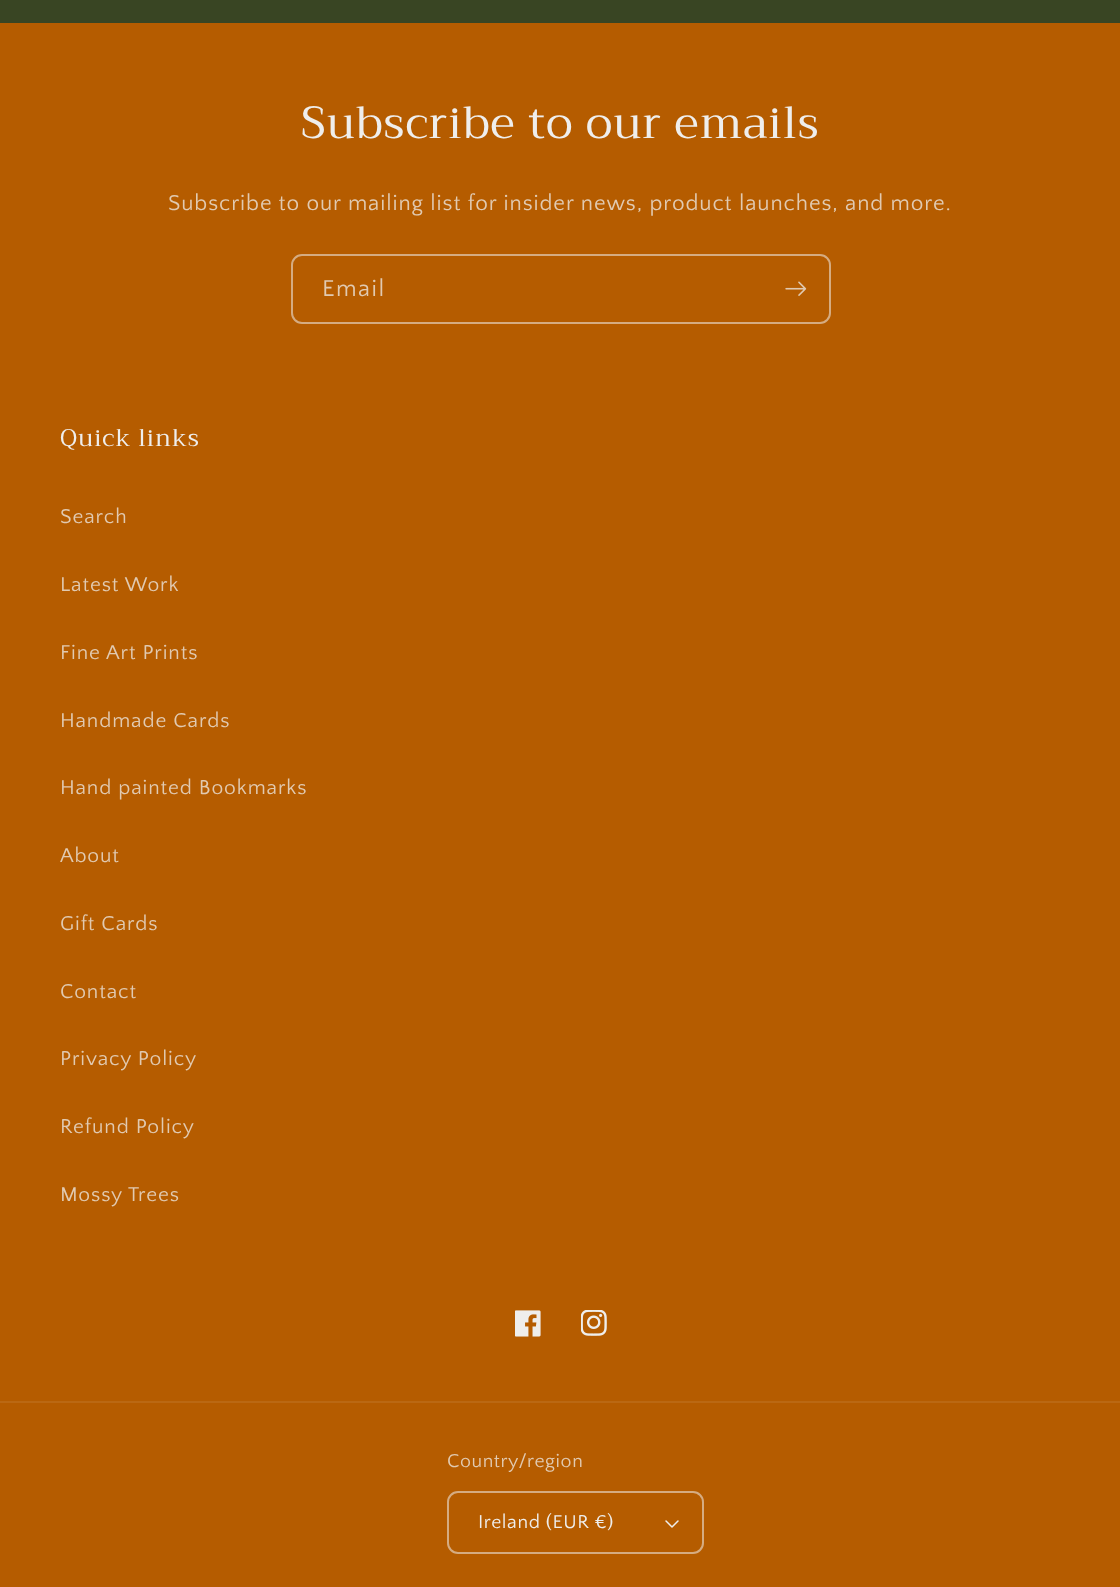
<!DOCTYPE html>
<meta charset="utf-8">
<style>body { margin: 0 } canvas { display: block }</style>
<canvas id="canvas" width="1120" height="1587"></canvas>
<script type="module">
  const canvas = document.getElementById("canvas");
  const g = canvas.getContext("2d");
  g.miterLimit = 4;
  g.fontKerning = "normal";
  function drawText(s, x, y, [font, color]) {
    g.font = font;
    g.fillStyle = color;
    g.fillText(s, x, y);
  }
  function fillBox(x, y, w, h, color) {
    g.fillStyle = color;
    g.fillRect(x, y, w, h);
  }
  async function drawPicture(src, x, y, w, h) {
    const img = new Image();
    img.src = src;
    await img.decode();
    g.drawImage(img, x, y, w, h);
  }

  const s1 = ["45px Trirong", "#EFEEEC"];
  const s2 = ["22.5px Quattrocento Sans", "#E1CAB1"];
  const s3 = ["24px Quattrocento Sans", "#E1CAB1"];
  const s4 = ["24px Trirong", "#EFEEEC"];
  const s5 = ["21px Quattrocento Sans", "#E1CAB1"];
  const s6 = ["19.5px Quattrocento Sans", "#E1CAB1"];
  const s7 = ["19.5px Quattrocento Sans", "#EFEEEC"];

  fillBox(0, 0, 1120, 1587, "#394523");
  fillBox(0, 23, 1120, 1564, "#B55C00");
  g.letterSpacing = "0.9px";
  drawText("Subscribe to our emails", 301, 138, s1);
  drawText("Subscribe to our mailing list for insider news, product launches, and more.", 168, 210, s2);
  g.beginPath();
  g.roundRect(292, 255, 538, 68, 10);
  g.strokeStyle = "#D5AC82";
  g.lineWidth = 2;
  g.stroke();
  g.letterSpacing = "1.5px";
  drawText("Email", 322, 296, s3);
  await drawPicture("pic1.png", 785, 281, 22, 15);
  g.letterSpacing = "0.9px";
  drawText("Quick links", 60, 446, s4);
  drawText("Search", 60, 523, s5);
  drawText("Latest Work", 60, 591, s5);
  drawText("Fine Art Prints", 60, 659, s5);
  drawText("Handmade Cards", 60, 727, s5);
  drawText("Hand painted Bookmarks", 60, 794, s5);
  drawText("About", 60, 862, s5);
  drawText("Gift Cards", 60, 930, s5);
  drawText("Contact", 60, 998, s5);
  drawText("Privacy Policy", 60, 1065, s5);
  drawText("Refund Policy", 60, 1133, s5);
  drawText("Mossy Trees", 60, 1201, s5);
  await drawPicture("pic2.png", 515, 1310, 26, 27);
  await drawPicture("pic3.png", 581, 1310, 26, 26);
  fillBox(0, 1401, 1120, 2, "#BA6813");
  g.letterSpacing = "0.6px";
  drawText("Country/region", 447, 1467, s6);
  await drawPicture("pic4.png", 665, 1520, 14, 8);
  g.beginPath();
  g.roundRect(448, 1492, 255, 61, 10);
  g.stroke();
  drawText("Ireland (EUR €)", 478, 1528, s7);
</script>
